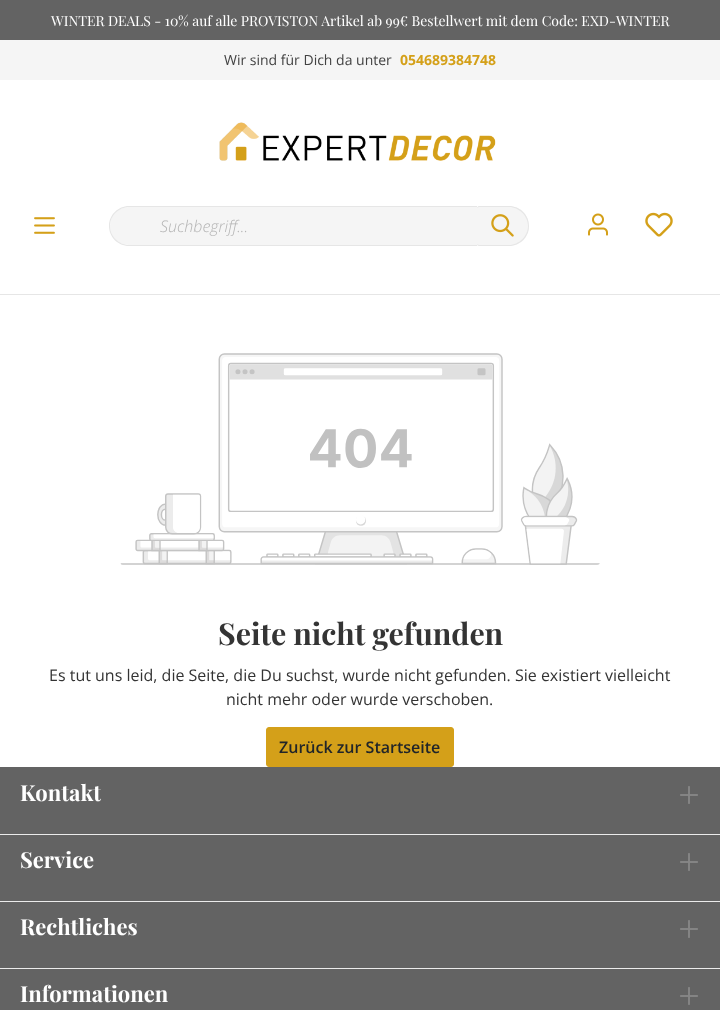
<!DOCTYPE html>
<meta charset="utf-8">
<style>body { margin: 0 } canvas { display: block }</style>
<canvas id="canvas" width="720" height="1010"></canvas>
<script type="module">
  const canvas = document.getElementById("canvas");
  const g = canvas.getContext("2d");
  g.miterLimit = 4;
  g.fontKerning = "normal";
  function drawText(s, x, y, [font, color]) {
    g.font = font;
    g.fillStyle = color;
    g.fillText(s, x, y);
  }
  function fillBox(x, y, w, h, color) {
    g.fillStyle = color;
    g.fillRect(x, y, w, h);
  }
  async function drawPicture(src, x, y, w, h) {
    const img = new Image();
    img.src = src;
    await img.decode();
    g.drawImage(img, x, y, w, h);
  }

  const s1 = ["14px Playfair Display", "#FFFFFF"];
  const s2 = ["14px Open Sans", "#424242"];
  const s3 = ["bold 14px Open Sans", "#D4A019"];
  const s4 = ["italic 300 16px Open Sans", "#B4B4B4"];
  const s5 = ["bold 30.25px Playfair Display", "#343434"];
  const s6 = ["16px Open Sans", "#343434"];
  const s7 = ["600 16px Open Sans", "#212529"];
  const s8 = ["bold 22px Playfair Display", "#FFFFFF"];

  fillBox(0, 0, 720, 1010, "#FFFFFF");
  fillBox(0, 0, 720, 40, "#636363");
  drawText("WINTER DEALS - 10% auf alle PROVISTON Artikel ab 99€ Bestellwert mit dem Code: EXD-WINTER", 51, 26, s1);
  fillBox(0, 40, 720, 40, "#F5F5F5");
  drawText("Wir sind für Dich da unter", 224, 65, s2);
  drawText("054689384748", 400, 65, s3);
  await drawPicture("pic1.png", 219, 122, 277, 39);
  await drawPicture("pic2.png", 34, 217, 21, 17);
  g.fillStyle = "#F5F5F5";
  g.beginPath();
  g.roundRect(110, 207, 367, 38, [19, 0, 0, 19]);
  g.fill();
  g.fillStyle = "#E6E6E6";
  g.beginPath();
  g.moveTo(129, 206);
  g.lineTo(477, 206);
  g.lineTo(477, 246);
  g.lineTo(129, 246);
  g.bezierCurveTo(118, 246, 109, 237, 109, 226);
  g.bezierCurveTo(109, 215, 118, 206, 129, 206);
  g.closePath();
  g.moveTo(129, 207);
  g.lineTo(477, 207);
  g.lineTo(477, 245);
  g.lineTo(129, 245);
  g.bezierCurveTo(119, 245, 110, 236, 110, 226);
  g.bezierCurveTo(110, 216, 119, 207, 129, 207);
  g.closePath();
  g.fill("evenodd");
  drawText("Suchbegriff...", 160, 232, s4);
  g.fillStyle = "#F5F5F5";
  g.beginPath();
  g.roundRect(477, 206, 52, 40, [2.5, 20, 20, 2.5]);
  g.fill();
  g.fillStyle = "#E6E6E6";
  g.beginPath();
  g.moveTo(479, 206);
  g.lineTo(509, 206);
  g.bezierCurveTo(520, 206, 529, 215, 529, 226);
  g.bezierCurveTo(529, 237, 520, 246, 509, 246);
  g.lineTo(479, 246);
  g.bezierCurveTo(478, 246, 477, 245, 477, 244);
  g.lineTo(477, 208);
  g.bezierCurveTo(477, 207, 478, 206, 479, 206);
  g.closePath();
  g.moveTo(479, 207);
  g.lineTo(509, 207);
  g.bezierCurveTo(519, 207, 528, 216, 528, 226);
  g.bezierCurveTo(528, 236, 519, 245, 509, 245);
  g.lineTo(479, 245);
  g.bezierCurveTo(478, 245, 477, 244, 477, 244);
  g.lineTo(477, 208);
  g.bezierCurveTo(477, 208, 478, 207, 479, 207);
  g.closePath();
  g.fill("evenodd");
  await drawPicture("pic3.png", 491, 214, 23, 23);
  await drawPicture("pic4.png", 588, 213, 20, 23);
  await drawPicture("pic5.png", 645, 212, 28, 25);
  fillBox(0, 294, 720, 1, "#E6E6E6");
  await drawPicture("pic6.png", 120, 353, 480, 212);
  drawText("Seite nicht gefunden", 218, 645, s5);
  drawText("Es tut uns leid, die Seite, die Du suchst, wurde nicht gefunden. Sie existiert vielleicht", 49, 681, s6);
  drawText("nicht mehr oder wurde verschoben.", 226, 705, s6);
  g.fillStyle = "#D4A019";
  g.beginPath();
  g.roundRect(266.5, 727.5, 187, 39, 2.5);
  g.fill();
  g.strokeStyle = "#D4A019";
  g.stroke();
  drawText("Zurück zur Startseite", 279, 753, s7);
  fillBox(0, 767, 720, 243, "#636363");
  fillBox(0, 834, 720, 1, "#EBEBEB");
  drawText("Kontakt", 20, 801, s8);
  await drawPicture("pic7.png", 680, 786, 18, 18);
  fillBox(0, 901, 720, 1, "#EBEBEB");
  drawText("Service", 20, 868, s8);
  await drawPicture("pic7.png", 680, 853, 18, 18);
  fillBox(0, 968, 720, 1, "#EBEBEB");
  drawText("Rechtliches", 20, 935, s8);
  await drawPicture("pic7.png", 680, 920, 18, 18);
  drawText("Informationen", 20, 1002, s8);
  await drawPicture("pic7.png", 680, 987, 18, 18);
</script>
